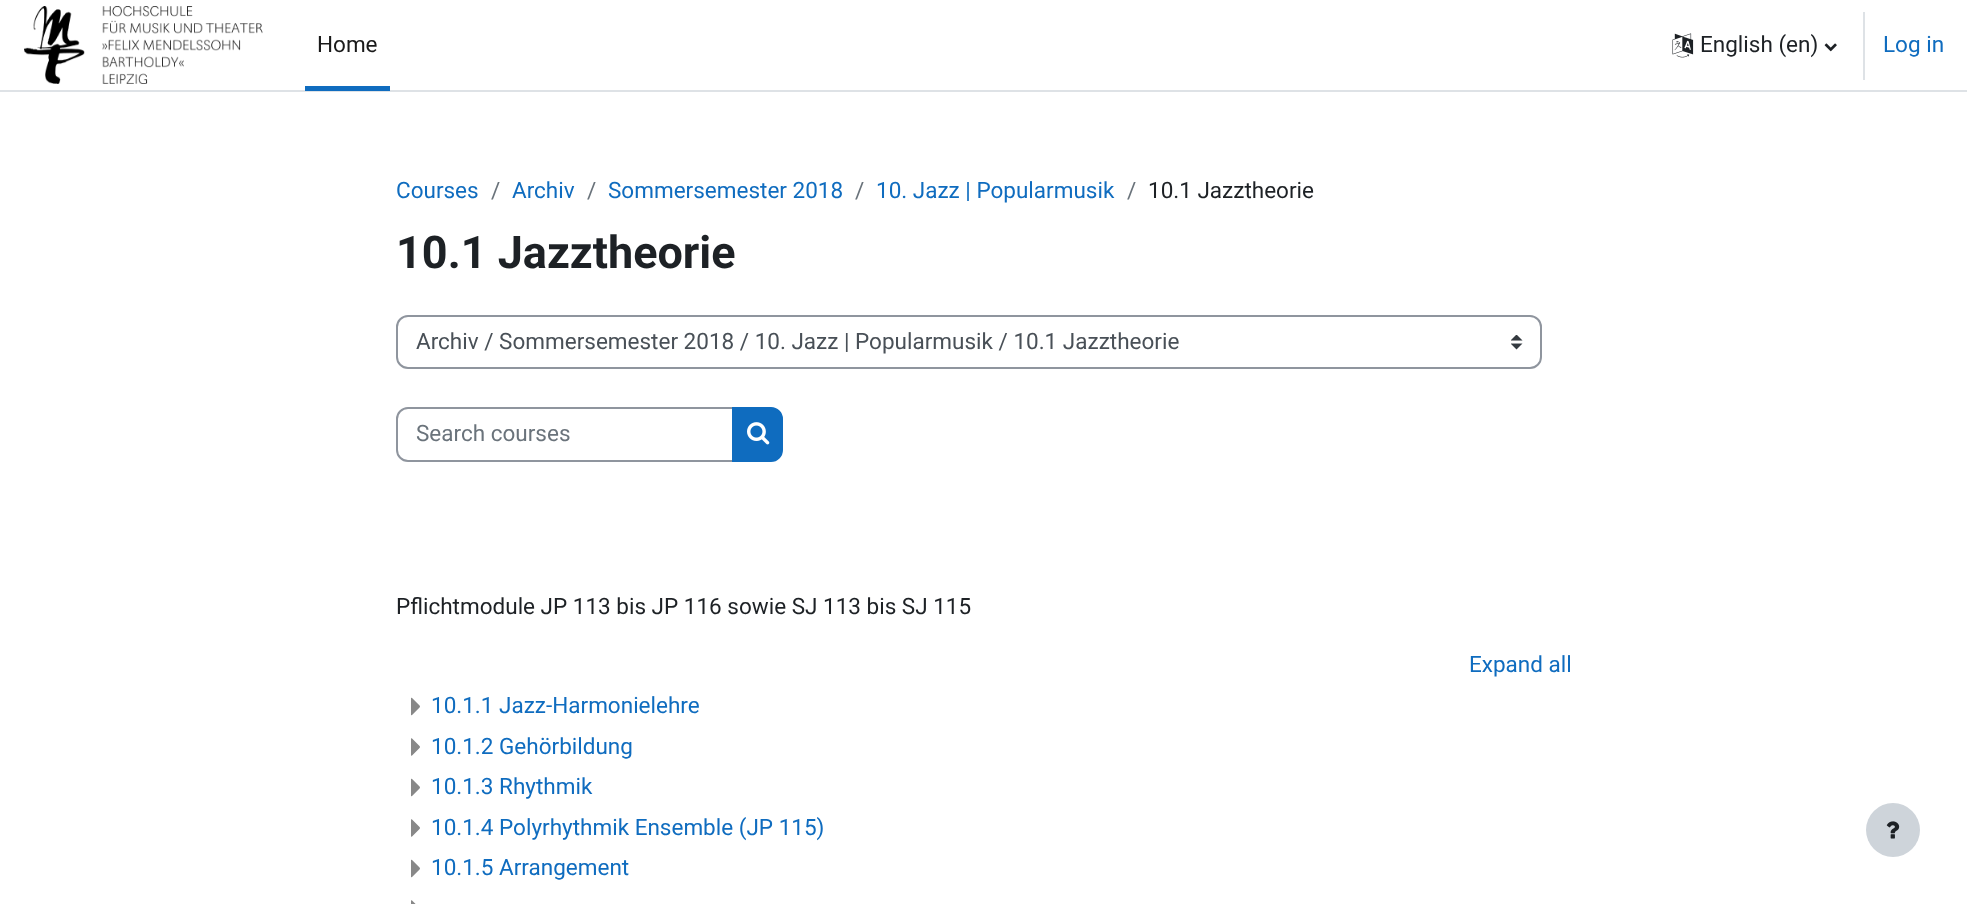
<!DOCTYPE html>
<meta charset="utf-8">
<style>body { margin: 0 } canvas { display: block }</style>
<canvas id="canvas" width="1967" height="904"></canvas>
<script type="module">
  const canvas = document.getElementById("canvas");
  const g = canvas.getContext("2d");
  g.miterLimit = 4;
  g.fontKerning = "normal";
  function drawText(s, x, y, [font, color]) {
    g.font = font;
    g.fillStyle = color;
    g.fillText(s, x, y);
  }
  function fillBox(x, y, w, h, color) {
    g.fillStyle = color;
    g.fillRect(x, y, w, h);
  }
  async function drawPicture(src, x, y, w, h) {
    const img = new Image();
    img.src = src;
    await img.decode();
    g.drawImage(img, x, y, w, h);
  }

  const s1 = ["22.5px Roboto", "#1A1A1A"];
  const s2 = ["22.5px Roboto", "#1D2125"];
  const s3 = ["22.5px Roboto", "#0F6CBF"];
  const s4 = ["22.5px Roboto", "#6A737B"];
  const s5 = ["bold 45px Roboto", "#1D2125"];
  const s6 = ["22.5px Roboto", "#495057"];

  fillBox(0, 0, 1967, 904, "#FFFFFF");
  fillBox(0, 90, 1967, 2, "#DEE2E6");
  await drawPicture("pic1.png", 24, 6, 239, 78);
  fillBox(305, 86, 85, 5, "#0F6CBF");
  drawText("Home", 317, 52, s1);
  await drawPicture("pic2.png", 1672, 33, 22, 25);
  drawText("English (en)", 1700, 52, s2);
  await drawPicture("pic3.png", 1824, 43, 13, 9);
  fillBox(1863, 12, 2, 68, "#DEE2E6");
  drawText("Log in", 1883, 52, s3);
  drawText("Courses", 396, 198, s3);
  drawText("/", 491, 198, s4);
  drawText("Archiv", 512, 198, s3);
  drawText("/", 587, 198, s4);
  drawText("Sommersemester 2018", 608, 198, s3);
  drawText("/", 855, 198, s4);
  drawText("10. Jazz | Popularmusik", 876, 198, s3);
  drawText("/", 1127, 198, s4);
  drawText("10.1 Jazztheorie", 1148, 198, s2);
  drawText("10.1 Jazztheorie", 396, 268, s5);
  await drawPicture("pic4.png", 1511, 335, 12, 15);
  g.beginPath();
  g.roundRect(397, 316, 1144, 52, 11);
  g.strokeStyle = "#8F959E";
  g.lineWidth = 2;
  g.stroke();
  drawText("Archiv / Sommersemester 2018 / 10. Jazz | Popularmusik / 10.1 Jazztheorie", 416, 349, s6);
  g.beginPath();
  g.roundRect(397, 408, 336, 53, [11, 0, 0, 11]);
  g.stroke();
  drawText("Search courses", 416, 441, s4);
  g.fillStyle = "#0F6CBF";
  g.beginPath();
  g.roundRect(733, 408, 49, 53, [0, 11, 11, 0]);
  g.fill();
  g.strokeStyle = "#0F6CBF";
  g.stroke();
  await drawPicture("pic5.png", 747, 422, 23, 23);
  drawText("Pflichtmodule JP 113 bis JP 116 sowie SJ 113 bis SJ 115", 396, 614, s2);
  drawText("Expand all", 1469, 672, s3);
  await drawPicture("pic6.png", 411, 697, 9, 19);
  drawText("10.1.1 Jazz-Harmonielehre", 431, 713, s3);
  await drawPicture("pic7.png", 411, 738, 9, 18);
  drawText("10.1.2 Gehörbildung", 431, 754, s3);
  await drawPicture("pic6.png", 411, 778, 9, 19);
  drawText("10.1.3 Rhythmik", 431, 794, s3);
  await drawPicture("pic7.png", 411, 819, 9, 18);
  drawText("10.1.4 Polyrhythmik Ensemble (JP 115)", 431, 835, s3);
  await drawPicture("pic6.png", 411, 859, 9, 19);
  drawText("10.1.5 Arrangement", 431, 875, s3);
  await drawPicture("pic8.png", 411, 900, 5, 4);
  g.fillStyle = "#CED4DA";
  g.beginPath();
  g.arc(1893, 830, 27, 0, Math.PI * 2);
  g.fill();
  await drawPicture("pic9.png", 1886, 821, 14, 18);
</script>
